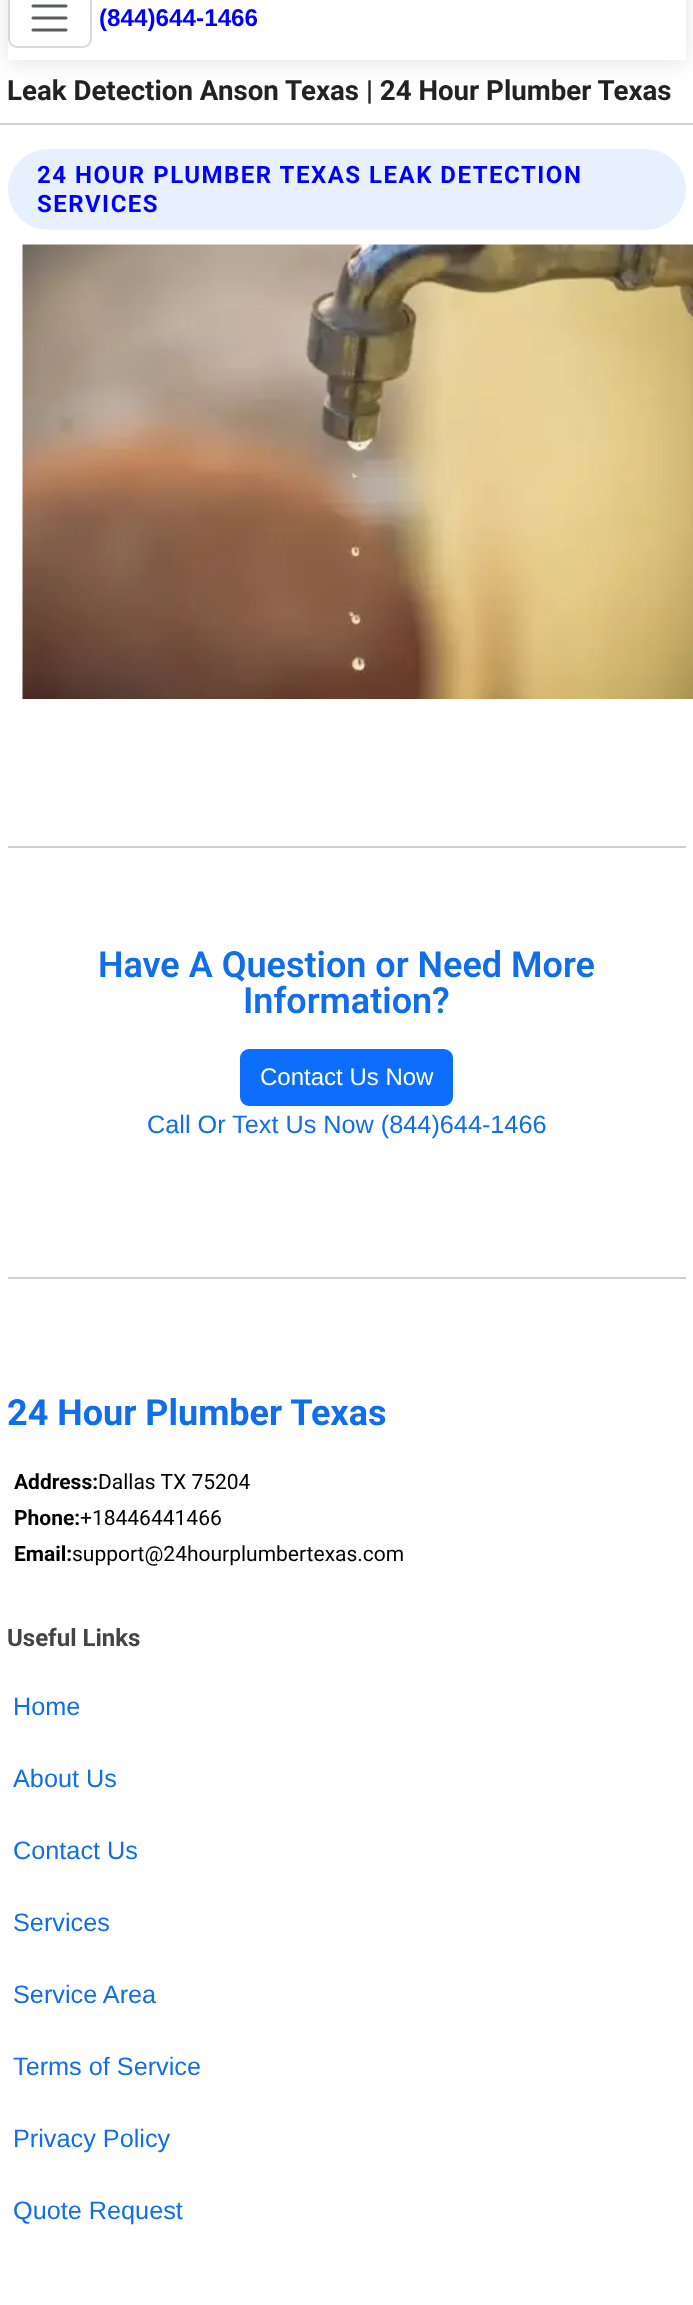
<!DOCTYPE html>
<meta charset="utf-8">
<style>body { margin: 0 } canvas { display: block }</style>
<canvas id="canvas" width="693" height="2305"></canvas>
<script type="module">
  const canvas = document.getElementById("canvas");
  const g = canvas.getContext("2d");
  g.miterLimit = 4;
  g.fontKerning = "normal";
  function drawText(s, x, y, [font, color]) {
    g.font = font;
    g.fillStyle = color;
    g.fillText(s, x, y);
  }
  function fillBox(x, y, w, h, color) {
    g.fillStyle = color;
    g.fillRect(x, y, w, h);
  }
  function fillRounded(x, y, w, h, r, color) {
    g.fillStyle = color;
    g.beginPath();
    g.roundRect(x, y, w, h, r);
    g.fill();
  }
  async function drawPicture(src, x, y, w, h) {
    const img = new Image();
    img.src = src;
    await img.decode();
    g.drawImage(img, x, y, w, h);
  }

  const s1 = ["bold 24.25px Liberation Sans", "#0000FF"];
  const s2 = ["bold 27.7px Roboto", "#222222"];
  const s3 = ["bold 24px Roboto", "#0000FF"];
  const s4 = ["600 36px Roboto", "#106EEA"];
  const s5 = ["24px Liberation Sans", "#FFFFFF"];
  const s6 = ["25.25px Liberation Sans", "#106EEA"];
  const s7 = ["bold 36px Roboto", "#106EEA"];
  const s8 = ["bold 21px Roboto", "#000000"];
  const s9 = ["21px Roboto", "#000000"];
  const s10 = ["bold 24px Roboto", "#444444"];

  fillBox(0, 0, 693, 2305, "#FFFFFF");
  g.fillStyle = "rgba(0, 0, 0, 0.1)";
  g.filter = "blur(11px)";
  g.beginPath();
  g.rect(8, -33, 678, 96);
  g.fill();
  g.filter = "none";
  fillBox(8, 0, 678, 60, "#FFFFFF");
  g.beginPath();
  g.roundRect(9, -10, 82, 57, 8);
  g.strokeStyle = "#D9D9D9";
  g.lineWidth = 2;
  g.stroke();
  g.beginPath();
  g.moveTo(33, 6);
  g.lineTo(66, 6);
  g.moveTo(33, 18);
  g.lineTo(66, 18);
  g.moveTo(33, 30);
  g.lineTo(66, 30);
  g.strokeStyle = "#595C5F";
  g.lineWidth = 3;
  g.lineCap = "round";
  g.stroke();
  drawText("(844)644-1466", 99, 26, s1);
  drawText("Leak Detection Anson Texas | 24 Hour Plumber Texas", 7, 100, s2);
  fillBox(0, 123, 693, 2, "#D0D0D0");
  fillRounded(8, 149, 678, 81, 40.5, "#E7F1FD");
  g.letterSpacing = "1.5px";
  drawText("24 HOUR PLUMBER TEXAS LEAK DETECTION", 37, 183, s3);
  drawText("SERVICES", 37, 212, s3);
  await drawPicture("pic1.png", 22, 244, 671, 455);
  fillBox(8, 846, 678, 2, "#D0D0D0");
  g.letterSpacing = "0px";
  drawText("Have A Question or Need More", 98, 977, s4);
  drawText("Information?", 243, 1013, s4);
  g.fillStyle = "#0D6EFD";
  g.beginPath();
  g.roundRect(241, 1050, 211, 55, 8);
  g.fill();
  g.strokeStyle = "#0D6EFD";
  g.lineWidth = 2;
  g.stroke();
  drawText("Contact Us Now", 260, 1085, s5);
  drawText("Call Or Text Us Now (844)644-1466", 147, 1133, s6);
  fillBox(8, 1277, 678, 2, "#D0D0D0");
  drawText("24 Hour Plumber Texas", 7, 1425, s7);
  drawText("Address:", 14, 1489, s8);
  drawText("Dallas TX 75204", 98, 1489, s9);
  drawText("Phone:", 14, 1525, s8);
  drawText("+18446441466", 80, 1525, s9);
  drawText("Email:", 14, 1561, s8);
  drawText("support@24hourplumbertexas.com", 72, 1561, s9);
  drawText("Useful Links", 7, 1646, s10);
  drawText("Home", 13, 1715, s6);
  drawText("About Us", 13, 1787, s6);
  drawText("Contact Us", 13, 1859, s6);
  drawText("Services", 13, 1931, s6);
  drawText("Service Area", 13, 2003, s6);
  drawText("Terms of Service", 13, 2075, s6);
  drawText("Privacy Policy", 13, 2147, s6);
  drawText("Quote Request", 13, 2219, s6);
</script>
